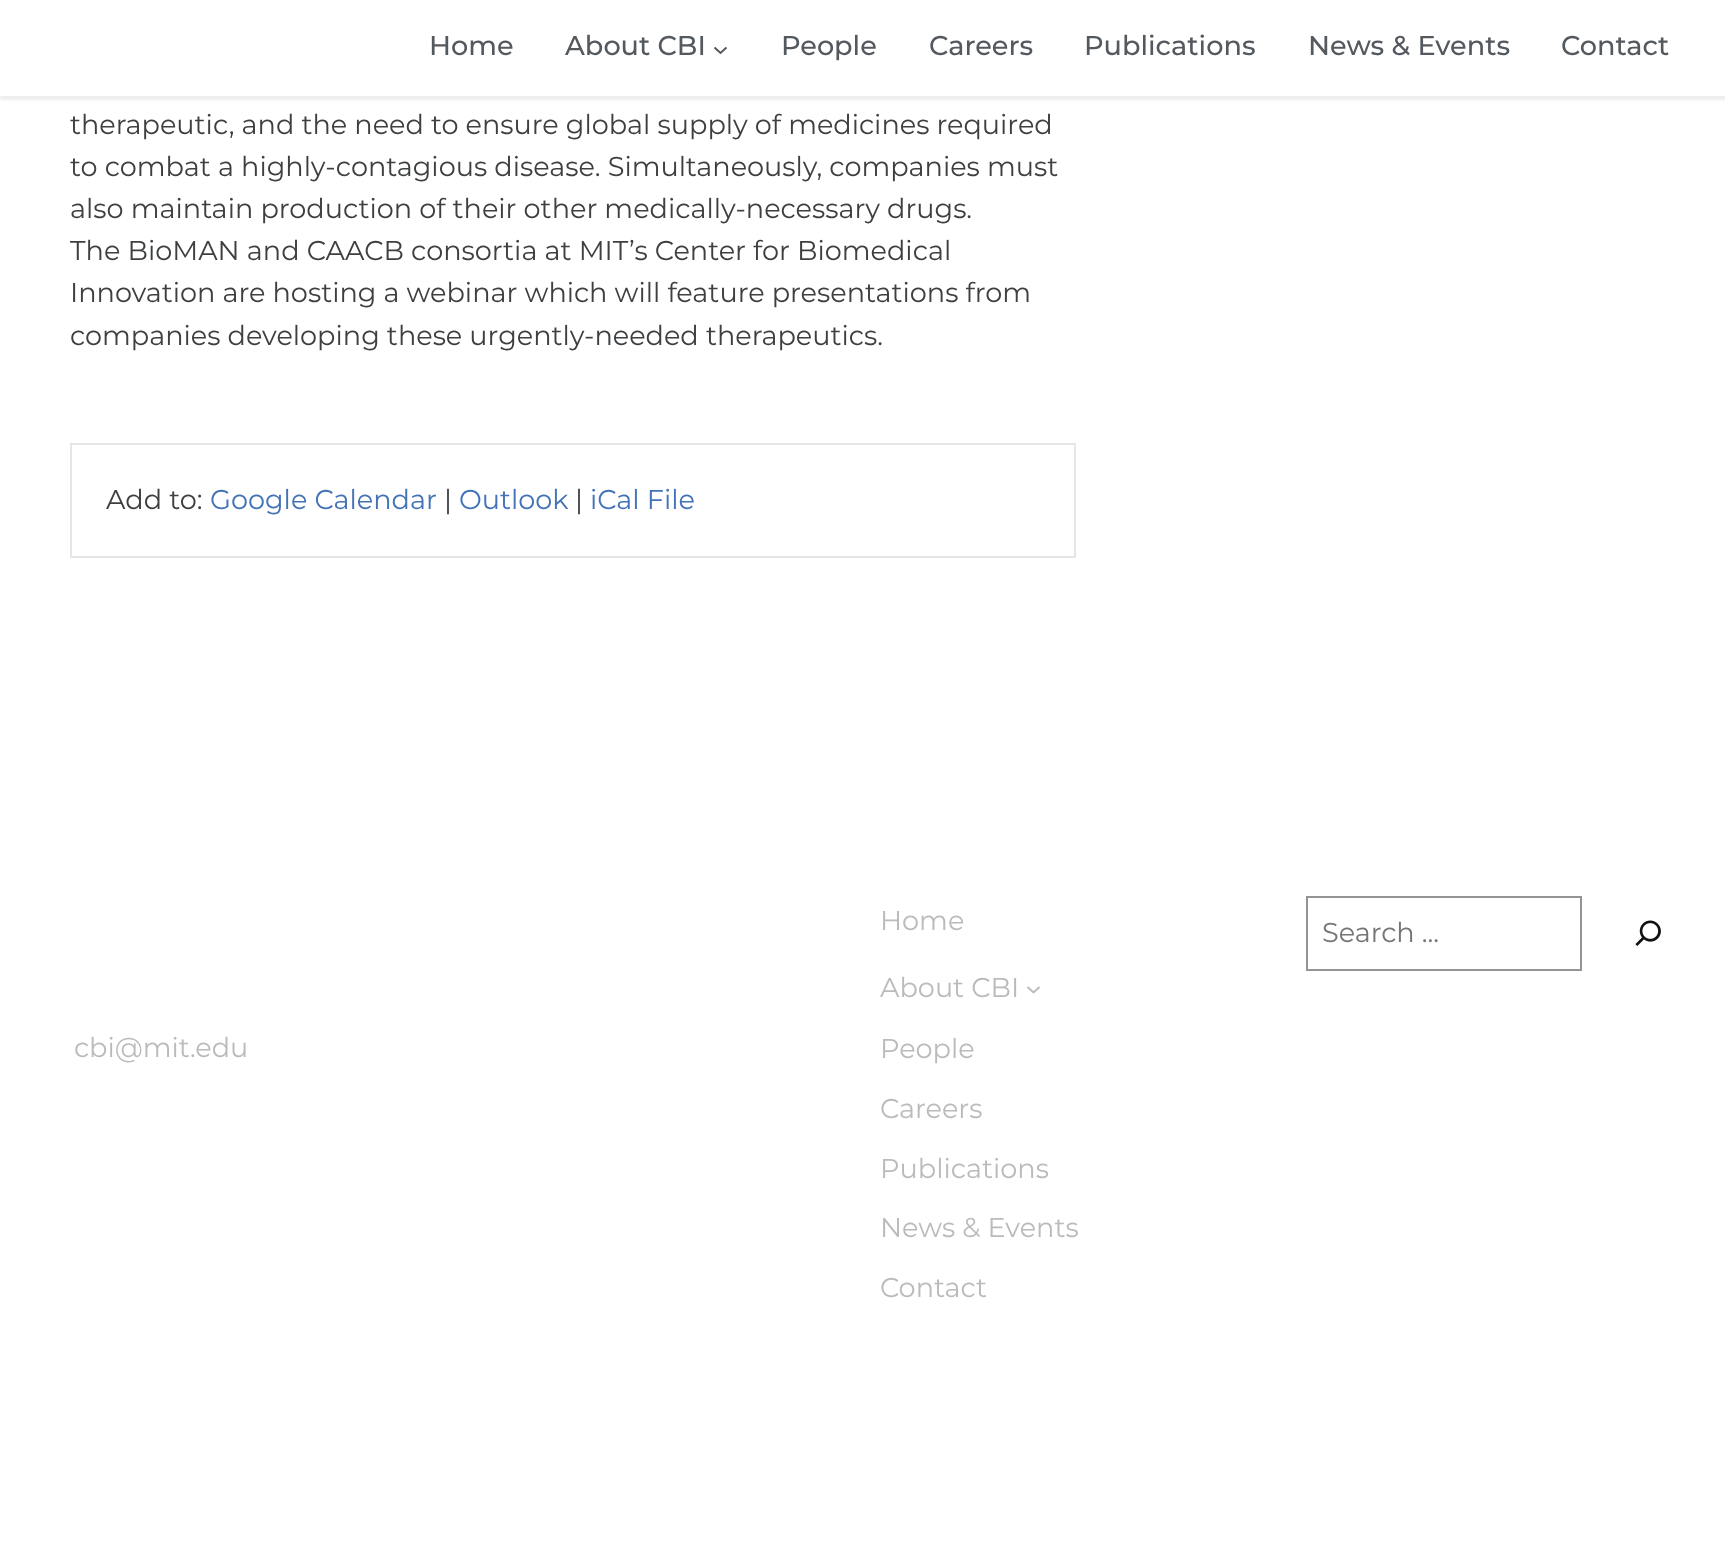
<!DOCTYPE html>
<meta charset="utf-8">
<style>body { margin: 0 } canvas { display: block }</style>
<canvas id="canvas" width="1725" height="1549"></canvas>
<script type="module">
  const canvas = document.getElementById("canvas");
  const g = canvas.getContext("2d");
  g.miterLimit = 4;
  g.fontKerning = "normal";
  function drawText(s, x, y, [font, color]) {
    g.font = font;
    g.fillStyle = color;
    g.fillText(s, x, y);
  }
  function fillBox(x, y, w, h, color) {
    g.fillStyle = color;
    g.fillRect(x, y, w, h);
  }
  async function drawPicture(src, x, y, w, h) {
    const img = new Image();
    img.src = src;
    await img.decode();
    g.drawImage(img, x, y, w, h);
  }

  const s1 = ["500 27.15px Montserrat", "#54595F"];
  const s2 = ["27.15px Montserrat", "#3D3F41"];
  const s3 = ["27.15px Montserrat", "#4373B6"];
  const s4 = ["27.15px Montserrat", "#BBBBBB"];
  const s5 = ["27.15px Montserrat", "#757575"];

  fillBox(0, 0, 1725, 1549, "#FFFFFF");
  g.save();
  g.beginPath();
  g.rect(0, 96, 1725, 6);
  g.clip();
  g.fillStyle = "#EEEEEE";
  g.filter = "blur(1px)";
  g.beginPath();
  g.rect(0, 4, 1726, 96);
  g.fill();
  g.filter = "none";
  g.restore();
  drawText("Home", 429, 55, s1);
  drawText("About CBI", 565, 55, s1);
  g.beginPath();
  g.moveTo(714.5, 47.5);
  g.lineTo(720.5, 53);
  g.lineTo(726.5, 47.5);
  g.strokeStyle = "#54595F";
  g.lineWidth = 2;
  g.stroke();
  drawText("People", 781, 55, s1);
  drawText("Careers", 929, 55, s1);
  drawText("Publications", 1084, 55, s1);
  drawText("News & Events", 1308, 55, s1);
  drawText("Contact", 1561, 55, s1);
  drawText("therapeutic, and the need to ensure global supply of medicines required", 70, 134, s2);
  drawText("to combat a highly-contagious disease. Simultaneously, companies must", 70, 176, s2);
  drawText("also maintain production of their other medically-necessary drugs.", 70, 218, s2);
  drawText("The BioMAN and CAACB consortia at MIT’s Center for Biomedical", 70, 260, s2);
  drawText("Innovation are hosting a webinar which will feature presentations from", 70, 302, s2);
  drawText("companies developing these urgently-needed therapeutics.", 70, 345, s2);
  g.strokeStyle = "#E6E6E6";
  g.strokeRect(71, 444, 1004, 113);
  drawText("Add to:", 106, 509, s2);
  drawText("Google Calendar", 210, 509, s3);
  drawText("|", 444, 509, s2);
  drawText("Outlook", 459, 509, s3);
  drawText("|", 575, 509, s2);
  drawText("iCal File", 590, 509, s3);
  drawText("Home", 880, 930, s4);
  drawText("About CBI", 880, 997, s4);
  g.beginPath();
  g.moveTo(1027.5, 987);
  g.lineTo(1033.5, 992.5);
  g.lineTo(1039.5, 987);
  g.strokeStyle = "#BBBBBB";
  g.stroke();
  drawText("People", 880, 1058, s4);
  drawText("Careers", 880, 1118, s4);
  drawText("Publications", 880, 1178, s4);
  drawText("News & Events", 880, 1237, s4);
  drawText("Contact", 880, 1297, s4);
  g.strokeStyle = "#949494";
  g.strokeRect(1307, 897, 274, 73);
  drawText("Search ...", 1322, 942, s5);
  await drawPicture("pic1.png", 1635, 920, 26, 26);
  drawText("cbi@mit.edu", 74, 1057, s4);
</script>
